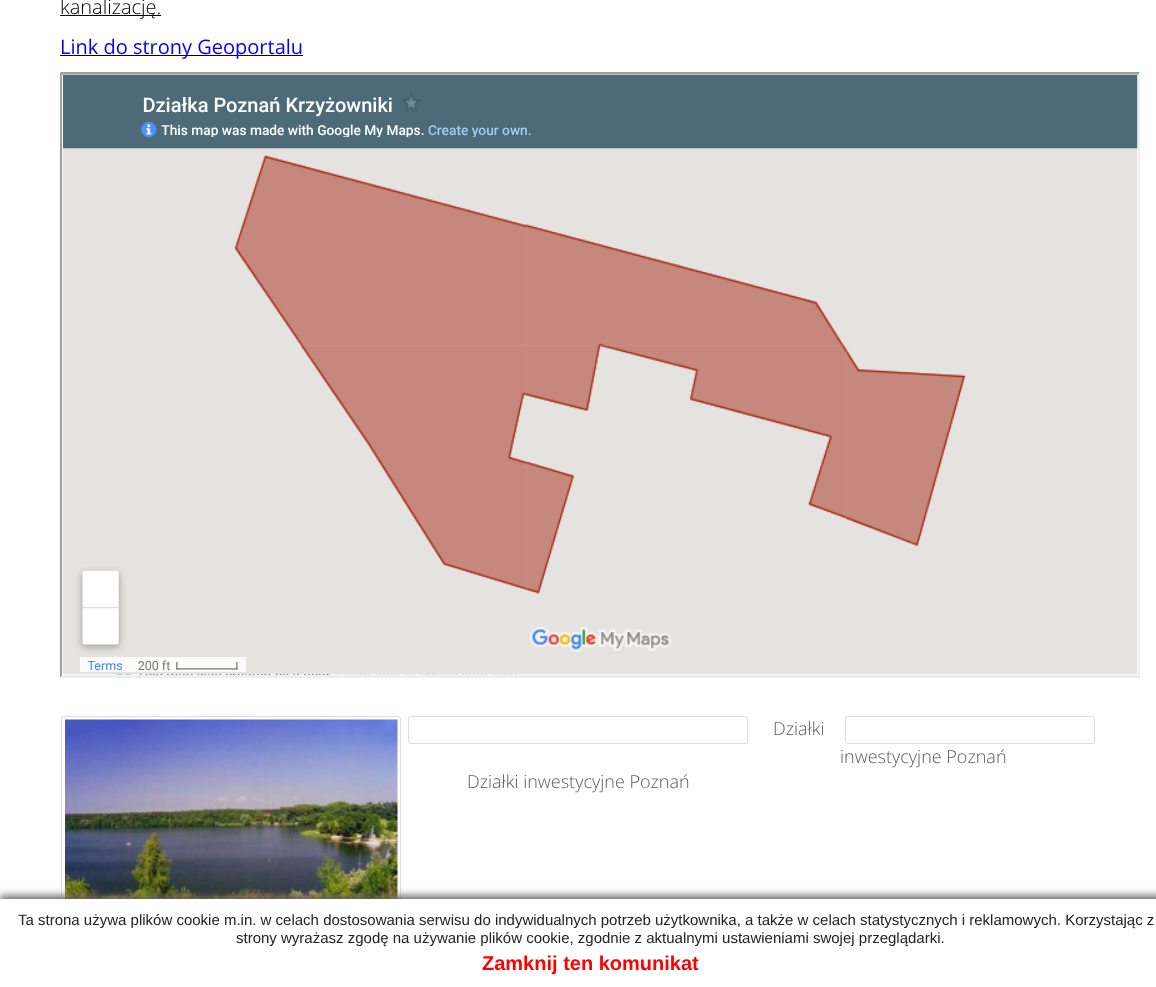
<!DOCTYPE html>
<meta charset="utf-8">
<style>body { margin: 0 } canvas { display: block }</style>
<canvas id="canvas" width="1156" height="987"></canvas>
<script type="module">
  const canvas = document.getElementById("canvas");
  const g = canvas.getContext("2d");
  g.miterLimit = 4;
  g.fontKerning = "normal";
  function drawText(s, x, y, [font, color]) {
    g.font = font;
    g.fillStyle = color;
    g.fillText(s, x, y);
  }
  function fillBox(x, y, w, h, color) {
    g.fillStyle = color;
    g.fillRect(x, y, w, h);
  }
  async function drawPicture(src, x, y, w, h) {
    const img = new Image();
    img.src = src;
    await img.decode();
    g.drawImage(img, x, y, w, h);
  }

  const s1 = ["300 20px Open Sans", "#000000"];
  const s2 = ["20px Open Sans", "#0000FF"];
  const s3 = ["300 18px Open Sans", "#5B5B5B"];
  const s4 = ["15px Liberation Sans", "#222222"];
  const s5 = ["bold 20px Liberation Sans", "#FF0000"];

  fillBox(0, 0, 1156, 987, "#FFFFFF");
  fillBox(60, 15, 101, 1, "#000000");
  drawText("kanalizację.", 60, 14, s1);
  fillBox(60, 55, 243, 1, "#000000");
  drawText("Link do strony Geoportalu", 60, 54, s2);
  g.fillStyle = "#9F9F9F";
  g.beginPath();
  g.moveTo(60, 72);
  g.lineTo(1140, 72);
  g.lineTo(1138, 75);
  g.lineTo(62, 75);
  g.closePath();
  g.fill();
  g.fillStyle = "#EEEEEE";
  g.beginPath();
  g.moveTo(1140, 72);
  g.lineTo(1140, 678);
  g.lineTo(1138, 675);
  g.lineTo(1138, 75);
  g.closePath();
  g.fill();
  g.beginPath();
  g.moveTo(1140, 678);
  g.lineTo(60, 678);
  g.lineTo(62, 675);
  g.lineTo(1138, 675);
  g.closePath();
  g.fill();
  g.fillStyle = "#9F9F9F";
  g.beginPath();
  g.moveTo(60, 678);
  g.lineTo(60, 72);
  g.lineTo(62, 75);
  g.lineTo(62, 675);
  g.closePath();
  g.fill();
  await drawPicture("pic1.png", 62, 74, 1076, 601);
  g.beginPath();
  g.roundRect(61.5, 716.5, 339, 226, 2);
  g.strokeStyle = "#DDDDDD";
  g.stroke();
  await drawPicture("pic2.png", 65, 719, 333, 180);
  g.beginPath();
  g.roundRect(845.5, 716.5, 249, 27, 2);
  g.stroke();
  drawText("Działki", 773, 735, s3);
  drawText("inwestycyjne Poznań", 840, 763, s3);
  g.beginPath();
  g.roundRect(408.5, 716.5, 339, 27, 2);
  g.stroke();
  drawText("Działki inwestycyjne Poznań", 467, 788, s3);
  g.fillStyle = "#5C5B5B";
  g.filter = "blur(4.5px)";
  g.beginPath();
  g.rect(0, 896, 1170, 89);
  g.fill();
  g.filter = "none";
  fillBox(0, 899, 1156, 88, "#FFFFFF");
  drawText("Ta strona używa plików cookie m.in. w celach dostosowania serwisu do indywidualnych potrzeb użytkownika, a także w celach statystycznych i reklamowych. Korzystając z", 18, 925, s4);
  drawText("strony wyrażasz zgodę na używanie plików cookie, zgodnie z aktualnymi ustawieniami swojej przeglądarki.", 236, 943, s4);
  drawText("Zamknij ten komunikat", 482, 970, s5);
</script>
